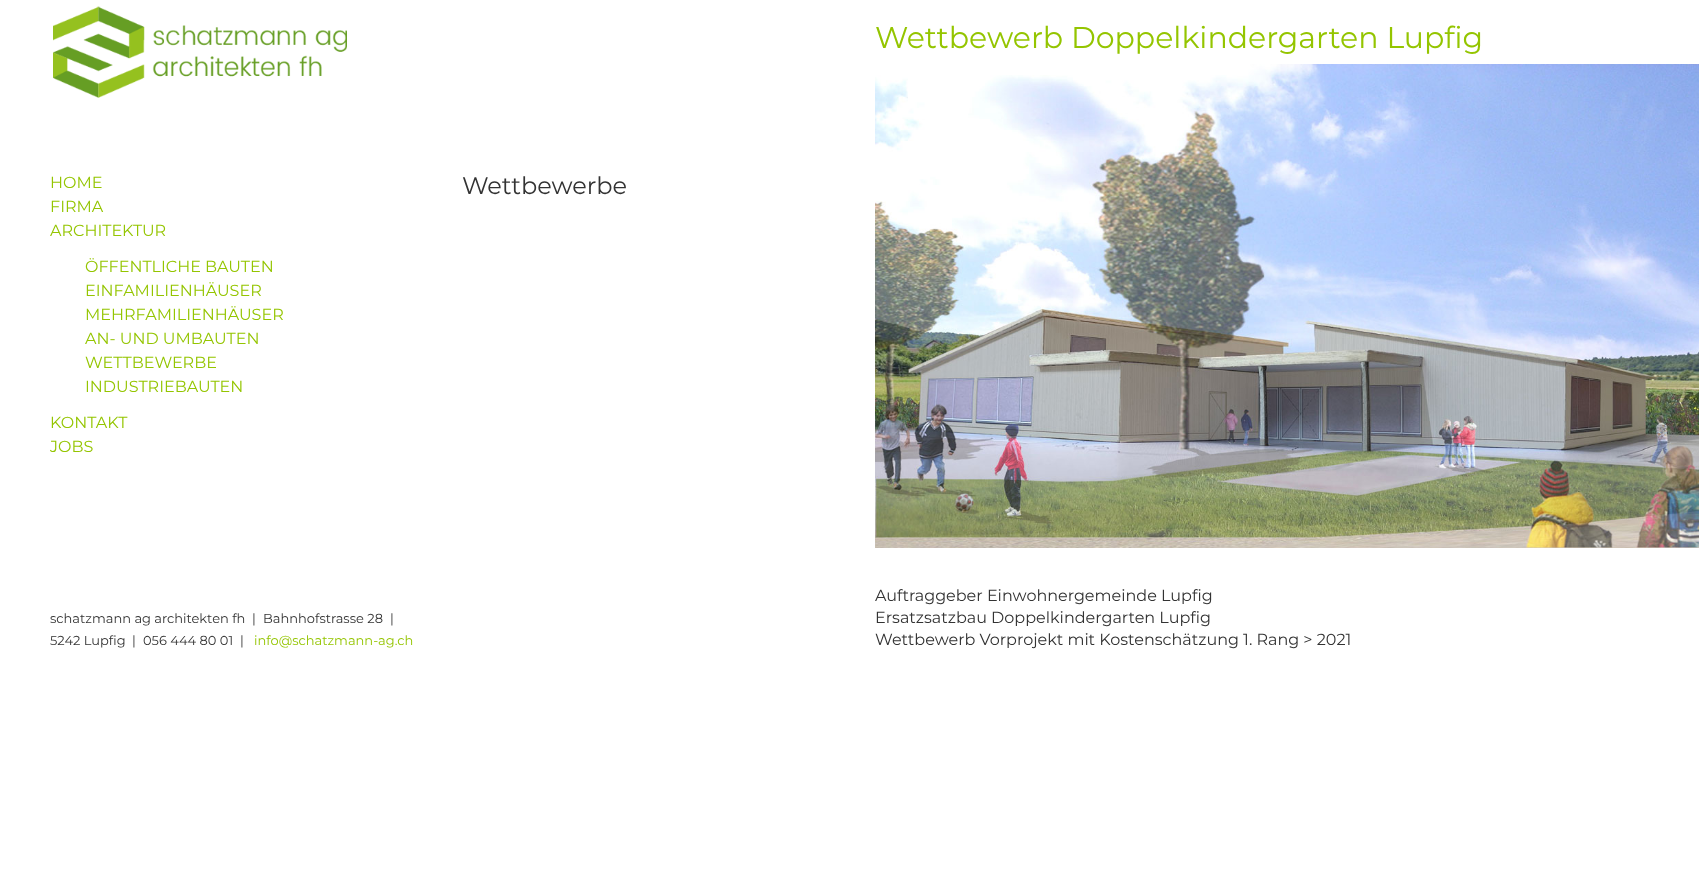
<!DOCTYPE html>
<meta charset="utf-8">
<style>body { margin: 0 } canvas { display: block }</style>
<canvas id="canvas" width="1699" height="888"></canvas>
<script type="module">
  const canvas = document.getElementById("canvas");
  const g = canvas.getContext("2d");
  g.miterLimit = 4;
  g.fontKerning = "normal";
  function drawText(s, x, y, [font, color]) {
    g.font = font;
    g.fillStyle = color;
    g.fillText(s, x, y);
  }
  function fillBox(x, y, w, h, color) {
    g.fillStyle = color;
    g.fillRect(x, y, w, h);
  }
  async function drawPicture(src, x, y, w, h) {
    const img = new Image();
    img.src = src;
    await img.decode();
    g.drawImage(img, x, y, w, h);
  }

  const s1 = ["100 16px Montserrat", "#94C500"];
  const s2 = ["100 24px Montserrat", "#333333"];
  const s3 = ["100 13px Montserrat", "#333333"];
  const s4 = ["100 13px Montserrat", "#94C500"];
  const s5 = ["100 30px Montserrat", "#94C500"];
  const s6 = ["100 16px Montserrat", "#333333"];

  fillBox(0, 0, 1699, 888, "#FFFFFF");
  await drawPicture("pic1.png", 53, 6, 294, 92);
  drawText("HOME", 50, 188, s1);
  drawText("FIRMA", 50, 212, s1);
  drawText("ARCHITEKTUR", 50, 236, s1);
  drawText("ÖFFENTLICHE BAUTEN", 85, 272, s1);
  drawText("EINFAMILIENHÄUSER", 85, 296, s1);
  drawText("MEHRFAMILIENHÄUSER", 85, 320, s1);
  drawText("AN- UND UMBAUTEN", 85, 344, s1);
  drawText("WETTBEWERBE", 85, 368, s1);
  drawText("INDUSTRIEBAUTEN", 85, 392, s1);
  drawText("KONTAKT", 50, 428, s1);
  drawText("JOBS", 50, 452, s1);
  drawText("Wettbewerbe", 462, 194, s2);
  drawText("schatzmann ag architekten fh", 50, 623, s3);
  drawText("|", 252, 623, s3);
  drawText("Bahnhofstrasse 28", 263, 623, s3);
  drawText("|", 390, 623, s3);
  drawText("5242 Lupfig", 50, 645, s3);
  drawText("|", 132, 645, s3);
  drawText("056 444 80 01", 143, 645, s3);
  drawText("|", 240, 645, s3);
  drawText("info@schatzmann-ag.ch", 254, 645, s4);
  drawText("Wettbewerb Doppelkindergarten Lupfig", 875, 48, s5);
  await drawPicture("pic2.png", 875, 64, 824, 484);
  drawText("Auftraggeber Einwohnergemeinde Lupfig", 875, 601, s6);
  drawText("Ersatzsatzbau Doppelkindergarten Lupfig", 875, 623, s6);
  drawText("Wettbewerb Vorprojekt mit Kostenschätzung 1. Rang > 2021", 875, 645, s6);
</script>
